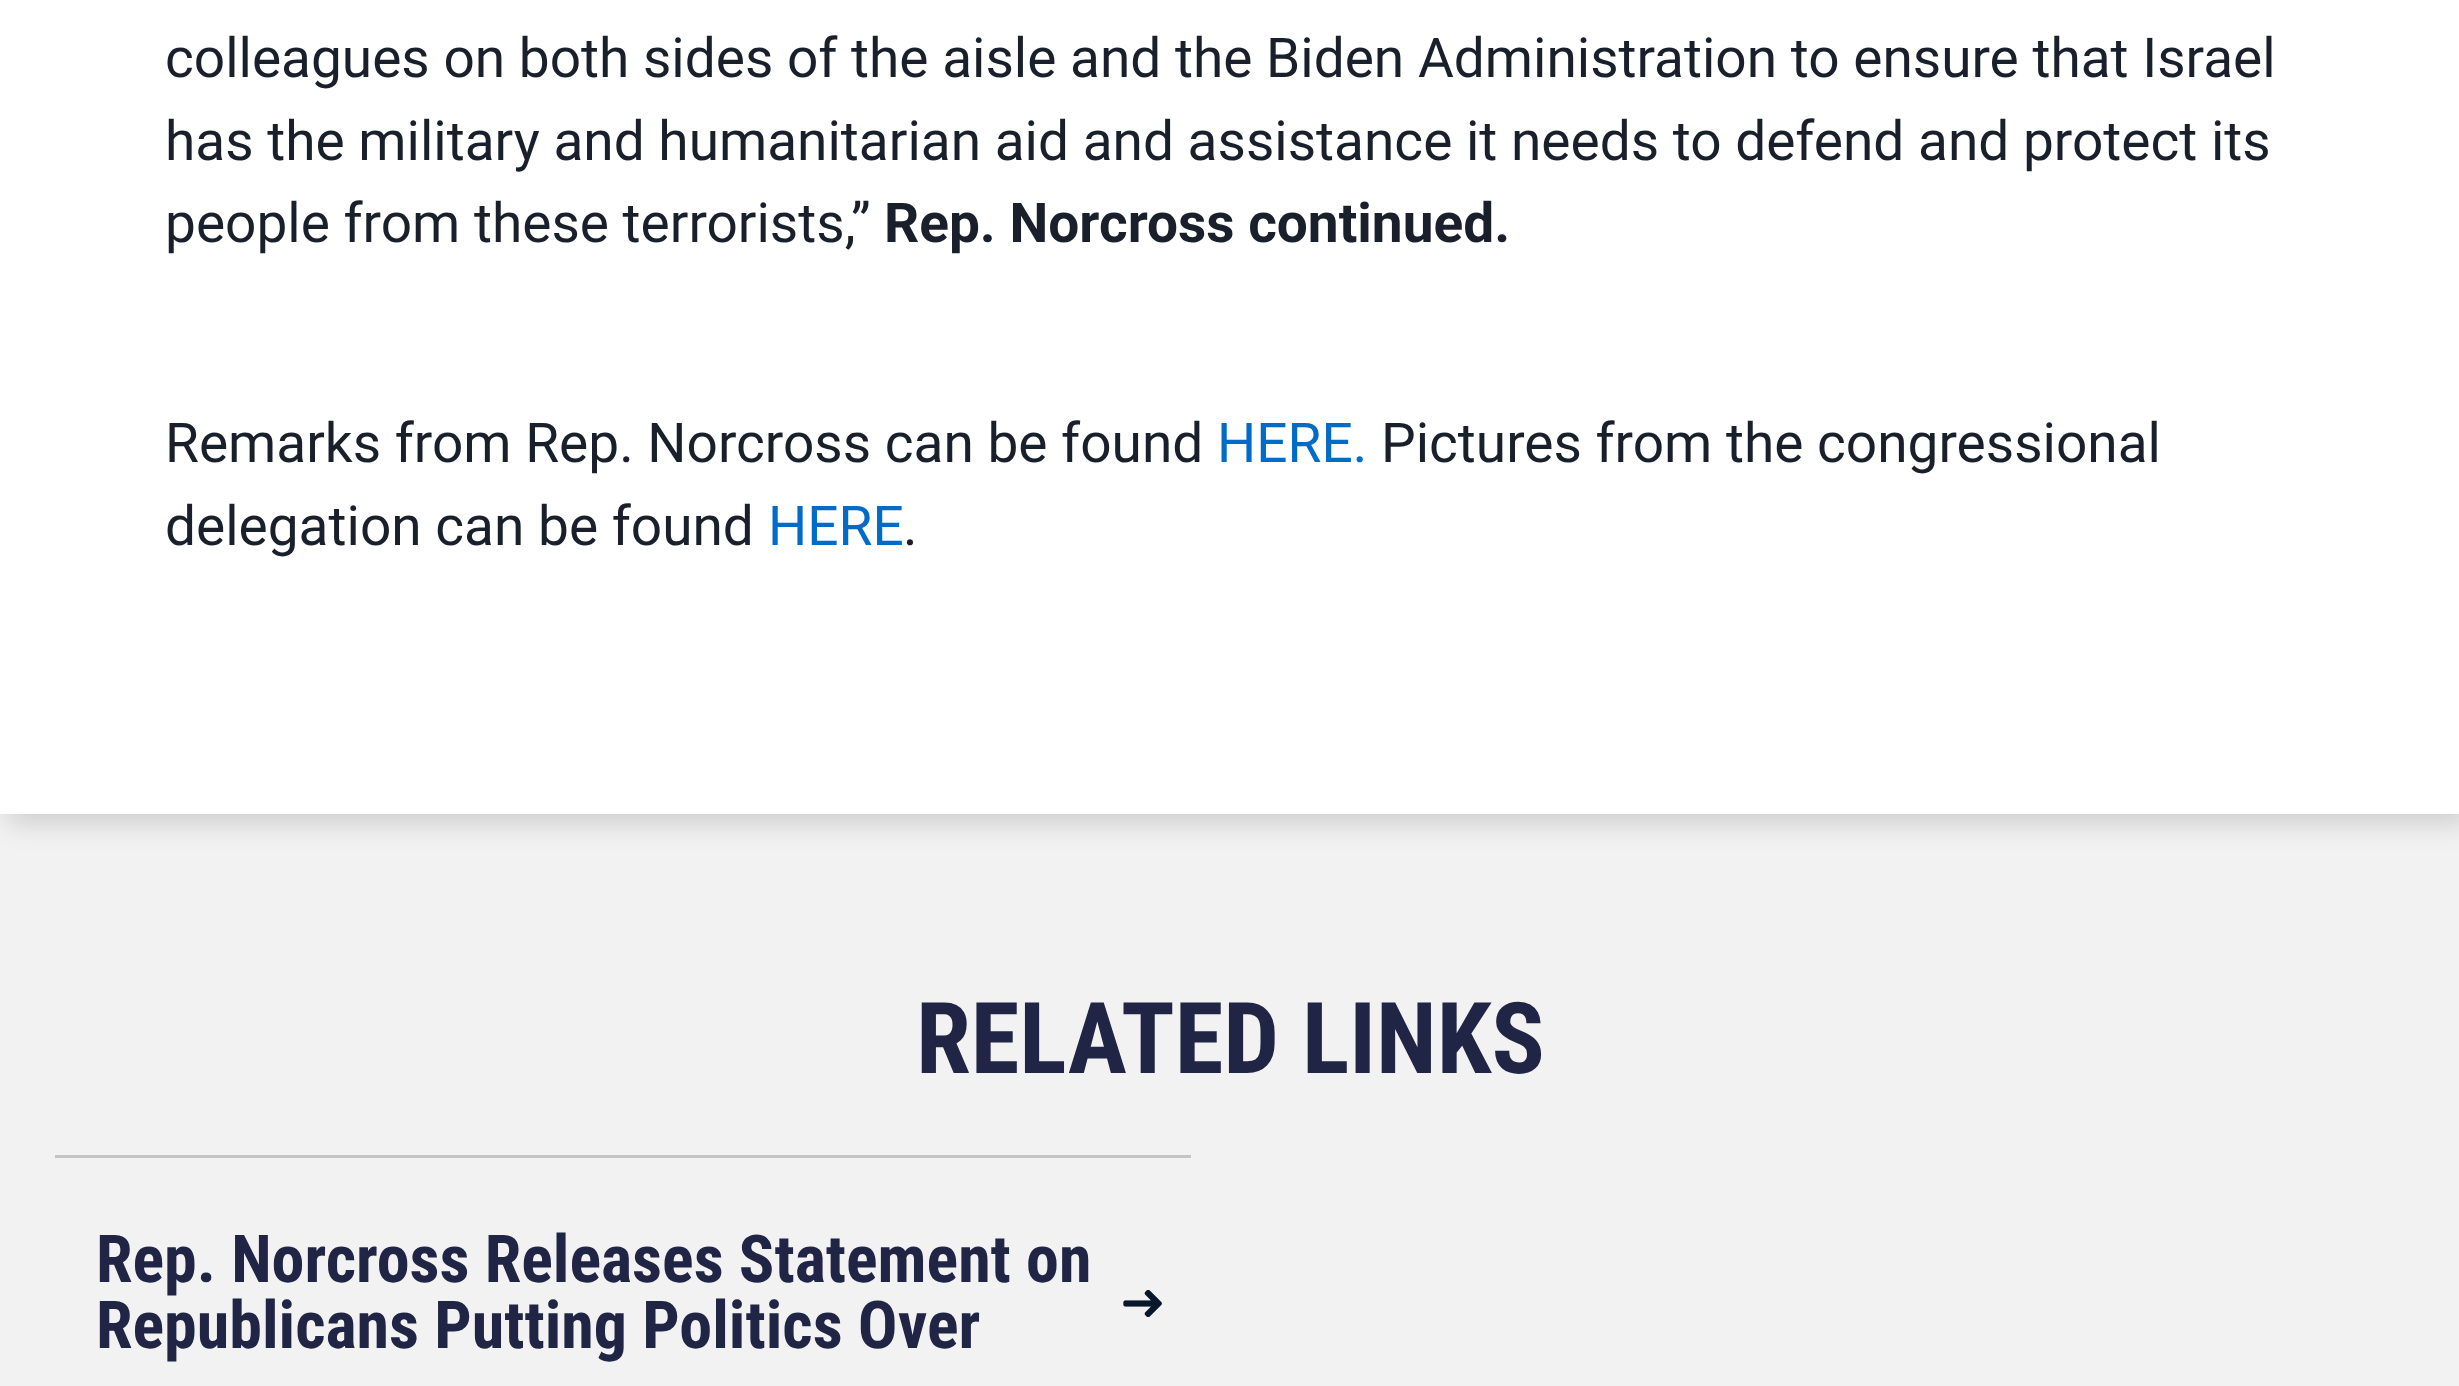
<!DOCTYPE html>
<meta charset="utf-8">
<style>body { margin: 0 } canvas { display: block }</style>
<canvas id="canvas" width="2459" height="1386"></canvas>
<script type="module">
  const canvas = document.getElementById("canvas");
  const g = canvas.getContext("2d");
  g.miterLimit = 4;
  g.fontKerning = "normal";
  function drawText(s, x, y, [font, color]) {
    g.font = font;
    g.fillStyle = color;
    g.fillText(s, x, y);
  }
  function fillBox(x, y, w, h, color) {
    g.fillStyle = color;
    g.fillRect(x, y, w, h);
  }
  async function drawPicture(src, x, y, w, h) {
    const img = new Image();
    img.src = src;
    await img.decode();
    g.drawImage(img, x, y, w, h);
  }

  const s1 = ["55px Roboto", "#1A202B"];
  const s2 = ["bold 55px Roboto", "#1A202B"];
  const s3 = ["55px Roboto", "#006CC7"];
  const s4 = ["bold 99px Roboto Condensed", "#202545"];
  const s5 = ["bold 66px Roboto Condensed", "#202545"];

  fillBox(0, 0, 2459, 1386, "#F2F2F2");
  g.fillStyle = "rgba(0, 0, 0, 0.16)";
  g.filter = "blur(14px)";
  g.beginPath();
  g.rect(8, -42, 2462, 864);
  g.fill();
  g.filter = "none";
  fillBox(0, 0, 2459, 814, "#FFFFFF");
  drawText("colleagues on both sides of the aisle and the Biden Administration to ensure that Israel", 165, 77, s1);
  drawText("has the military and humanitarian aid and assistance it needs to defend and protect its", 165, 160, s1);
  drawText("people from these terrorists,”", 165, 242, s1);
  drawText("Rep. Norcross continued.", 884, 242, s2);
  drawText("Remarks from Rep. Norcross can be found", 165, 462, s1);
  drawText("HERE.", 1217, 462, s3);
  drawText("Pictures from the congressional", 1381, 462, s1);
  drawText("delegation can be found", 165, 545, s1);
  drawText("HERE", 768, 545, s3);
  drawText(".", 903, 545, s1);
  drawText("RELATED LINKS", 916, 1073, s4);
  fillBox(55, 1155, 1136, 3, "#C4C4C4");
  drawText("Rep. Norcross Releases Statement on", 96, 1282, s5);
  drawText("Republicans Putting Politics Over", 96, 1348, s5);
  await drawPicture("pic1.png", 1123, 1290, 39, 27);
</script>
